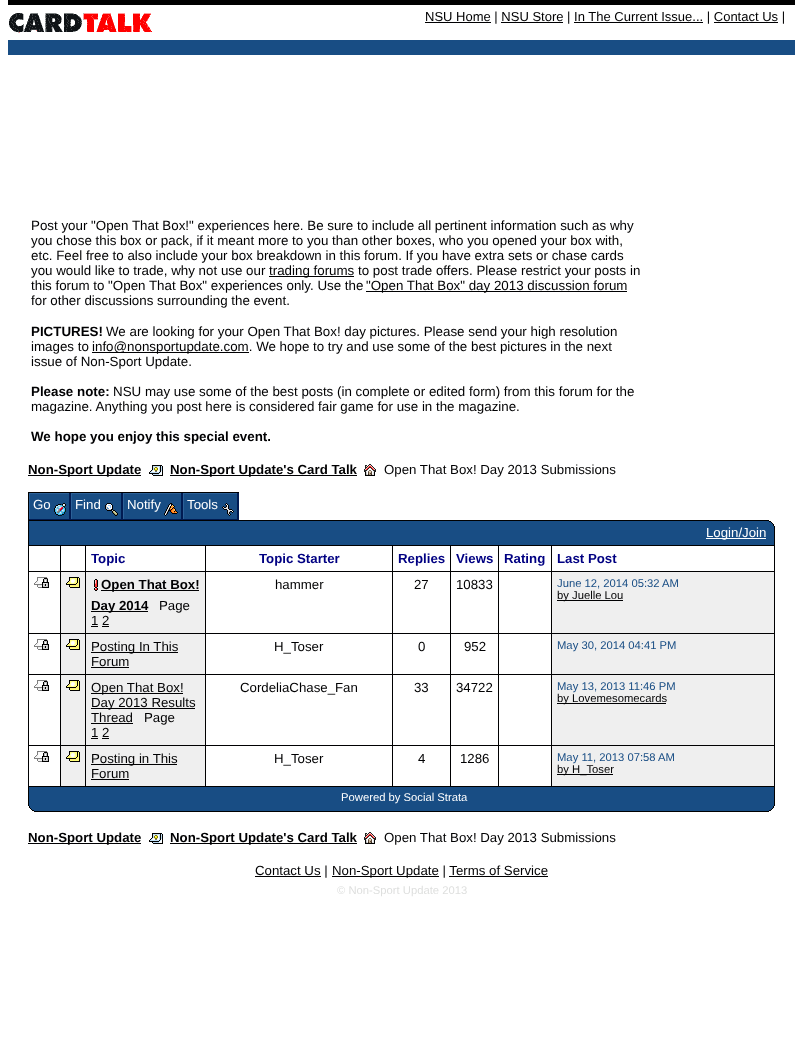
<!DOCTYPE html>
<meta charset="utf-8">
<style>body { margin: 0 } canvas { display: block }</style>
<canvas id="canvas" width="803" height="1047"></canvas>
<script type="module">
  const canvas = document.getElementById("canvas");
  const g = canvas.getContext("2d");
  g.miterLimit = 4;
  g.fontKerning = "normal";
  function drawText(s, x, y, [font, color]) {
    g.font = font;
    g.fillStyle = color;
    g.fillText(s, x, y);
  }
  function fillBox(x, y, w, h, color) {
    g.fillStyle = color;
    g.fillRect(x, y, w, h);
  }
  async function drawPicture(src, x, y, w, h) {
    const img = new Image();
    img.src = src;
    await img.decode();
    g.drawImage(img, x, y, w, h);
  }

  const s1 = ["13px Liberation Sans", "#000002"];
  const s2 = ["13.35px Liberation Sans", "#000002"];
  const s3 = ["bold 13.35px Liberation Sans", "#000002"];
  const s4 = ["bold 13.25px Liberation Sans", "#000002"];
  const s5 = ["13.25px Liberation Sans", "#000002"];
  const s6 = ["13.25px Liberation Sans", "#FFFFFF"];
  const s7 = ["bold 13.25px Liberation Sans", "#000082"];
  const s8 = ["11.25px Liberation Sans", "#184D84"];
  const s9 = ["11.25px Liberation Sans", "#000002"];
  const s10 = ["11.25px Liberation Sans", "#FFFFFF"];
  const s11 = ["11.25px Liberation Sans", "#DEDFDE"];

  fillBox(0, 0, 803, 1047, "#FFFFFF");
  fillBox(8, 0, 787, 5, "#000000");
  await drawPicture("pic1.png", 9, 13, 143, 20);
  fillBox(425, 22, 66, 1, "#000002");
  drawText("NSU Home | NSU Store | In The Current Issue... | Contact Us |", 425, 21, s1);
  fillBox(501, 22, 62, 1, "#000002");
  fillBox(574, 22, 129, 1, "#000002");
  fillBox(714, 22, 64, 1, "#000002");
  fillBox(8, 40, 787, 15, "#184D84");
  drawText("Post your \"Open That Box!\" experiences here. Be sure to include all pertinent information such as why", 31, 230, s2);
  drawText("you chose this box or pack, if it meant more to you than other boxes, who you opened your box with,", 31, 245, s2);
  drawText("etc. Feel free to also include your box breakdown in this forum. If you have extra sets or chase cards", 31, 260, s2);
  drawText("you would like to trade, why not use our", 31, 275, s2);
  fillBox(269, 276, 85, 1, "#000002");
  drawText("trading forums to post trade offers. Please restrict your posts in", 269, 275, s2);
  drawText("this forum to \"Open That Box\" experiences only. Use the", 31, 290, s2);
  fillBox(366, 291, 261, 1, "#000002");
  drawText("\"Open That Box\" day 2013 discussion forum", 366, 290, s2);
  drawText("for other discussions surrounding the event.", 31, 305, s2);
  drawText("PICTURES!", 31, 336, s3);
  drawText("We are looking for your Open That Box! day pictures. Please send your high resolution", 106, 336, s2);
  drawText("images to", 31, 351, s2);
  fillBox(92, 352, 157, 1, "#000002");
  drawText("info@nonsportupdate.com. We hope to try and use some of the best pictures in the next", 92, 351, s2);
  drawText("issue of Non-Sport Update.", 31, 366, s2);
  drawText("Please note:", 31, 396, s3);
  drawText("NSU may use some of the best posts (in complete or edited form) from this forum for the", 113, 396, s2);
  drawText("magazine. Anything you post here is considered fair game for use in the magazine.", 31, 411, s2);
  drawText("We hope you enjoy this special event.", 31, 441, s3);
  fillBox(28, 475, 113, 1, "#000002");
  drawText("Non-Sport Update", 28, 474, s4);
  await drawPicture("pic2.png", 149, 465, 14, 11);
  fillBox(170, 475, 187, 1, "#000002");
  drawText("Non-Sport Update's Card Talk", 170, 474, s4);
  await drawPicture("pic3.png", 364, 464, 12, 12);
  drawText("Open That Box! Day 2013 Submissions", 384, 474, s5);
  fillBox(28, 492, 211, 1, "#000001");
  fillBox(28, 492, 1, 53, "#000001");
  fillBox(30, 494, 39, 25, "#184D84");
  fillBox(69, 493, 2, 27, "#001B52");
  fillBox(29, 519, 42, 1, "#001B52");
  fillBox(29, 493, 40, 1, "#2C6198");
  fillBox(29, 493, 1, 26, "#2C6198");
  drawText("Go", 33, 509, s6);
  await drawPicture("pic4.png", 54, 503, 12, 13);
  fillBox(72, 494, 49, 25, "#184D84");
  fillBox(121, 493, 2, 27, "#001B52");
  fillBox(71, 519, 52, 1, "#001B52");
  fillBox(71, 493, 50, 1, "#2C6198");
  fillBox(71, 493, 1, 26, "#2C6198");
  drawText("Find", 75, 509, s6);
  await drawPicture("pic5.png", 105, 503, 13, 13);
  fillBox(124, 494, 57, 25, "#184D84");
  fillBox(181, 493, 2, 27, "#001B52");
  fillBox(123, 519, 60, 1, "#001B52");
  fillBox(123, 493, 58, 1, "#2C6198");
  fillBox(123, 493, 1, 26, "#2C6198");
  drawText("Notify", 127, 509, s6);
  await drawPicture("pic6.png", 164, 503, 14, 13);
  fillBox(184, 494, 53, 25, "#184D84");
  fillBox(237, 493, 2, 27, "#001B52");
  fillBox(183, 519, 56, 1, "#001B52");
  fillBox(183, 493, 54, 1, "#2C6198");
  fillBox(183, 493, 1, 26, "#2C6198");
  drawText("Tools", 187, 509, s6);
  await drawPicture("pic7.png", 222, 503, 12, 13);
  fillBox(29, 521, 745, 24, "#184D84");
  fillBox(29, 520, 737, 1, "#000001");
  fillBox(706, 538, 60, 1, "#FFFFFF");
  drawText("Login/Join", 706, 537, s6);
  await drawPicture("pic8.png", 766, 520, 9, 25);
  fillBox(28, 545, 747, 1, "#000001");
  fillBox(774, 545, 1, 241, "#000001");
  fillBox(28, 545, 1, 241, "#000001");
  fillBox(60, 546, 1, 25, "#000001");
  fillBox(85, 546, 1, 25, "#000001");
  drawText("Topic", 91, 563, s7);
  fillBox(205, 546, 1, 25, "#000001");
  drawText("Topic Starter", 259, 563, s7);
  fillBox(392, 546, 1, 25, "#000001");
  drawText("Replies", 398, 563, s7);
  fillBox(450, 546, 1, 25, "#000001");
  drawText("Views", 456, 563, s7);
  fillBox(498, 546, 1, 25, "#000001");
  drawText("Rating", 504, 563, s7);
  fillBox(551, 546, 1, 25, "#000001");
  drawText("Last Post", 557, 563, s7);
  fillBox(29, 571, 745, 1, "#000001");
  await drawPicture("pic9.png", 34, 577, 14, 11);
  await drawPicture("pic10.png", 42, 578, 7, 10);
  fillBox(61, 572, 24, 61, "#EFEFEF");
  fillBox(60, 571, 1, 62, "#000001");
  await drawPicture("pic11.png", 66, 577, 14, 11);
  fillBox(86, 572, 119, 61, "#EFEFEF");
  fillBox(85, 571, 1, 62, "#000001");
  await drawPicture("pic12.png", 94, 579, 4, 12);
  fillBox(101, 590, 98, 1, "#000002");
  drawText("Open That Box!", 101, 589, s4);
  fillBox(91, 611, 57, 1, "#000002");
  drawText("Day 2014", 91, 610, s4);
  drawText("Page", 159, 610, s5);
  drawText("1 2", 91, 625, s5);
  fillBox(91, 626, 7, 1, "#000002");
  fillBox(102, 626, 7, 1, "#000002");
  fillBox(205, 571, 1, 62, "#000001");
  drawText("hammer", 275, 589, s5);
  fillBox(392, 571, 1, 62, "#000001");
  drawText("27", 414, 589, s5);
  fillBox(450, 571, 1, 62, "#000001");
  drawText("10833", 456, 589, s5);
  fillBox(498, 571, 1, 62, "#000001");
  fillBox(552, 572, 222, 61, "#EFEFEF");
  fillBox(551, 571, 1, 62, "#000001");
  drawText("June 12, 2014 05:32 AM", 557, 587, s8);
  fillBox(557, 600, 66, 1, "#000002");
  drawText("by Juelle Lou", 557, 599, s9);
  fillBox(29, 633, 745, 1, "#000001");
  await drawPicture("pic9.png", 34, 639, 14, 11);
  await drawPicture("pic10.png", 42, 640, 7, 10);
  fillBox(61, 634, 24, 40, "#EFEFEF");
  fillBox(60, 633, 1, 41, "#000001");
  await drawPicture("pic11.png", 66, 639, 14, 11);
  fillBox(86, 634, 119, 40, "#EFEFEF");
  fillBox(85, 633, 1, 41, "#000001");
  fillBox(91, 652, 87, 1, "#000002");
  drawText("Posting In This", 91, 651, s5);
  drawText("Forum", 91, 666, s5);
  fillBox(91, 667, 38, 1, "#000002");
  fillBox(205, 633, 1, 41, "#000001");
  drawText("H_Toser", 274, 651, s5);
  fillBox(392, 633, 1, 41, "#000001");
  drawText("0", 418, 651, s5);
  fillBox(450, 633, 1, 41, "#000001");
  drawText("952", 464, 651, s5);
  fillBox(498, 633, 1, 41, "#000001");
  fillBox(552, 634, 222, 40, "#EFEFEF");
  fillBox(551, 633, 1, 41, "#000001");
  drawText("May 30, 2014 04:41 PM", 557, 649, s8);
  fillBox(29, 674, 745, 1, "#000001");
  await drawPicture("pic9.png", 34, 680, 14, 11);
  await drawPicture("pic10.png", 42, 681, 7, 10);
  fillBox(61, 675, 24, 70, "#EFEFEF");
  fillBox(60, 674, 1, 71, "#000001");
  await drawPicture("pic11.png", 66, 680, 14, 11);
  fillBox(86, 675, 119, 70, "#EFEFEF");
  fillBox(85, 674, 1, 71, "#000001");
  fillBox(91, 693, 92, 1, "#000002");
  drawText("Open That Box!", 91, 692, s5);
  fillBox(91, 708, 104, 1, "#000002");
  drawText("Day 2013 Results", 91, 707, s5);
  drawText("Thread", 91, 722, s5);
  fillBox(91, 723, 42, 1, "#000002");
  drawText("Page", 144, 722, s5);
  drawText("1 2", 91, 737, s5);
  fillBox(91, 738, 7, 1, "#000002");
  fillBox(102, 738, 7, 1, "#000002");
  fillBox(205, 674, 1, 71, "#000001");
  drawText("CordeliaChase_Fan", 240, 692, s5);
  fillBox(392, 674, 1, 71, "#000001");
  drawText("33", 414, 692, s5);
  fillBox(450, 674, 1, 71, "#000001");
  drawText("34722", 456, 692, s5);
  fillBox(498, 674, 1, 71, "#000001");
  fillBox(552, 675, 222, 70, "#EFEFEF");
  fillBox(551, 674, 1, 71, "#000001");
  drawText("May 13, 2013 11:46 PM", 557, 690, s8);
  fillBox(557, 703, 109, 1, "#000002");
  drawText("by Lovemesomecards", 557, 702, s9);
  fillBox(29, 745, 745, 1, "#000001");
  await drawPicture("pic9.png", 34, 751, 14, 11);
  await drawPicture("pic10.png", 42, 752, 7, 10);
  fillBox(61, 746, 24, 40, "#EFEFEF");
  fillBox(60, 745, 1, 41, "#000001");
  await drawPicture("pic11.png", 66, 751, 14, 11);
  fillBox(86, 746, 119, 40, "#EFEFEF");
  fillBox(85, 745, 1, 41, "#000001");
  fillBox(91, 764, 86, 1, "#000002");
  drawText("Posting in This", 91, 763, s5);
  drawText("Forum", 91, 778, s5);
  fillBox(91, 779, 38, 1, "#000002");
  fillBox(205, 745, 1, 41, "#000001");
  drawText("H_Toser", 274, 763, s5);
  fillBox(392, 745, 1, 41, "#000001");
  drawText("4", 418, 763, s5);
  fillBox(450, 745, 1, 41, "#000001");
  drawText("1286", 460, 763, s5);
  fillBox(498, 745, 1, 41, "#000001");
  fillBox(552, 746, 222, 40, "#EFEFEF");
  fillBox(551, 745, 1, 41, "#000001");
  drawText("May 11, 2013 07:58 AM", 557, 761, s8);
  fillBox(557, 774, 56, 1, "#000002");
  drawText("by H_Toser", 557, 773, s9);
  fillBox(29, 787, 745, 24, "#184D84");
  await drawPicture("pic13.png", 28, 787, 9, 25);
  fillBox(28, 786, 747, 1, "#000001");
  drawText("Powered by Social Strata", 341, 801, s10);
  await drawPicture("pic14.png", 766, 787, 9, 25);
  fillBox(37, 811, 729, 1, "#000001");
  fillBox(28, 843, 113, 1, "#000002");
  drawText("Non-Sport Update", 28, 842, s4);
  await drawPicture("pic2.png", 149, 833, 14, 11);
  fillBox(170, 843, 187, 1, "#000002");
  drawText("Non-Sport Update's Card Talk", 170, 842, s4);
  await drawPicture("pic3.png", 364, 832, 12, 12);
  drawText("Open That Box! Day 2013 Submissions", 384, 842, s5);
  fillBox(255, 876, 66, 1, "#000002");
  drawText("Contact Us |", 255, 875, s5);
  fillBox(332, 876, 107, 1, "#000002");
  drawText("Non-Sport Update | Terms of Service", 332, 875, s5);
  fillBox(449, 876, 99, 1, "#000002");
  drawText("© Non-Sport Update 2013", 337, 894, s11);
</script>
